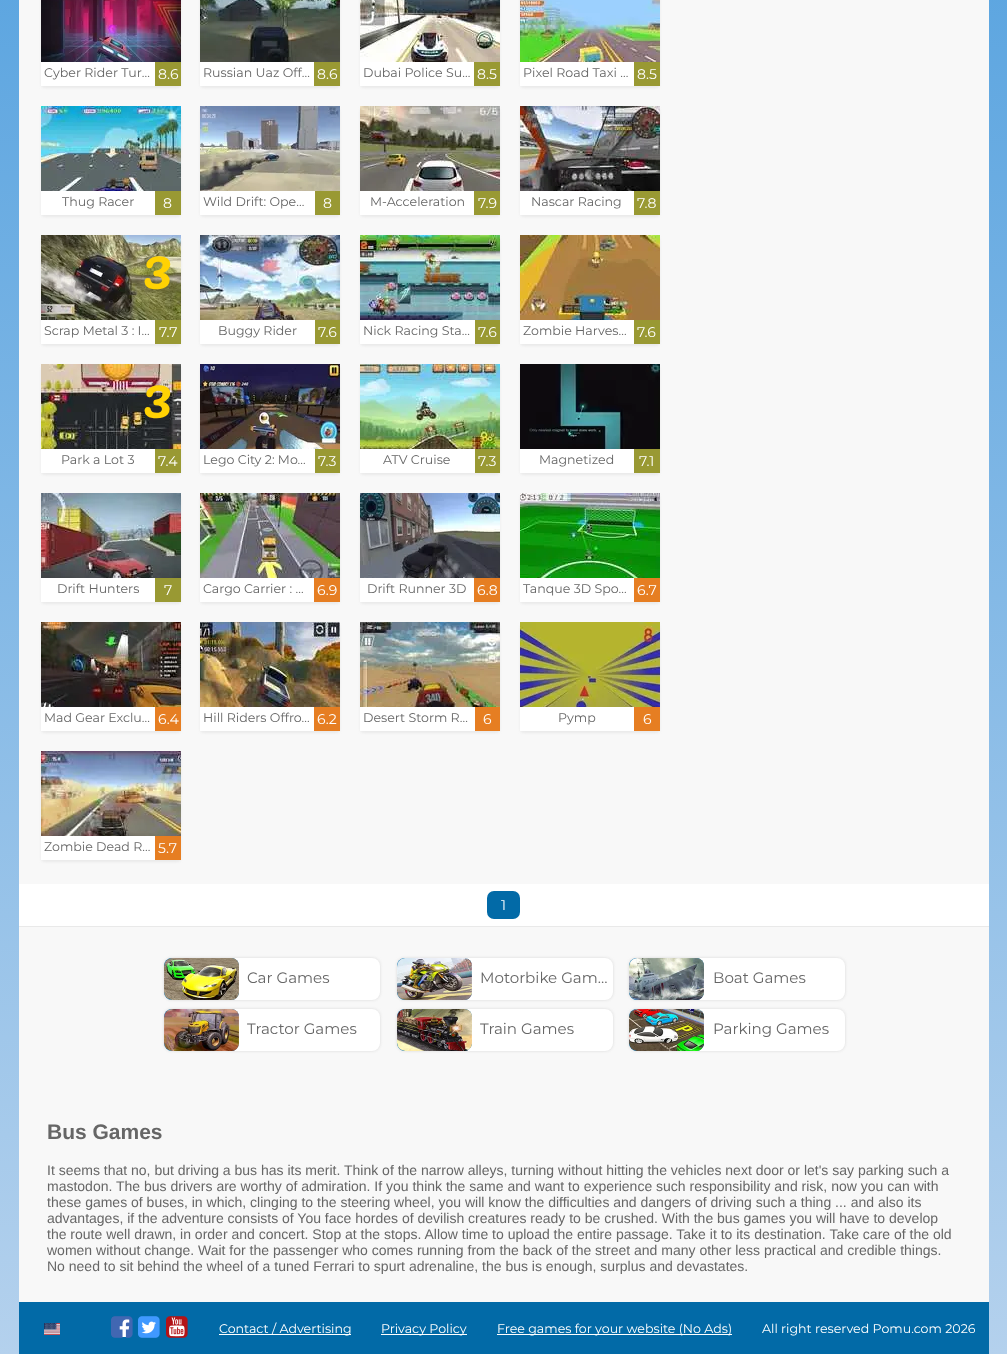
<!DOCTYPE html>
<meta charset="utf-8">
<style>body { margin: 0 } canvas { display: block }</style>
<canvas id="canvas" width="1007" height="1354"></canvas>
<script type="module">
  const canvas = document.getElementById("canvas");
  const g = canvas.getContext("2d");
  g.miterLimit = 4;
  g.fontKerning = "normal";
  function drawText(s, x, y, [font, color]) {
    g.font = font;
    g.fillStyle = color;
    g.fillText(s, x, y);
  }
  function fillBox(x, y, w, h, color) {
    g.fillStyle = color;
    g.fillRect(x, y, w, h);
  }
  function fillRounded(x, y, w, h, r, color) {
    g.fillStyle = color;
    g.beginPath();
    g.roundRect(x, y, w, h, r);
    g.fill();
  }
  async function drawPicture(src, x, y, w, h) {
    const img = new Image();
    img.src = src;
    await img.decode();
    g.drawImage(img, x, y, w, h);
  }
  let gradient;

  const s1 = ["12.6px Montserrat", "#666666"];
  const s2 = ["14px Montserrat", "#FFFFFF"];
  const s3 = ["56px Pacifico", "#FFD203"];
  const s4 = ["15.1px Montserrat", "#666666"];
  const s5 = ["bold 21px Liberation Sans", "#666666"];
  const s6 = ["14px Liberation Sans", "#666666"];
  const s7 = ["12.6px Montserrat", "#FFFFFF"];

  fillBox(0, 0, 1007, 1354, "#FFFFFF");
  gradient = g.createLinearGradient(503, -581, 504, 1354);
  gradient.addColorStop(0, "#3994DB");
  gradient.addColorStop(1, "#B4D1ED");
  g.fillStyle = gradient;
  g.fillRect(0, 0, 1007, 1354);
  fillBox(19, 0, 970, 1302, "#F8F8F8");
  g.fillStyle = "#E9E9E9";
  g.filter = "blur(1px)";
  g.beginPath();
  g.roundRect(41, -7, 140, 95, 4);
  g.fill();
  g.filter = "none";
  await drawPicture("pic1.png", 41, 0, 140, 62);
  fillBox(41, 62, 114, 24, "#FFFFFF");
  drawText("Cyber Rider Tur…", 44, 77, s1);
  fillBox(155, 62, 26, 24, "#999933");
  drawText("8.6", 158, 79, s2);
  g.fillStyle = "#E9E9E9";
  g.filter = "blur(1px)";
  g.beginPath();
  g.roundRect(200, -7, 140, 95, 4);
  g.fill();
  g.filter = "none";
  await drawPicture("pic2.png", 200, 0, 140, 62);
  fillBox(200, 62, 114, 24, "#FFFFFF");
  drawText("Russian Uaz Off…", 203, 77, s1);
  fillBox(314, 62, 26, 24, "#999933");
  drawText("8.6", 317, 79, s2);
  g.fillStyle = "#E9E9E9";
  g.filter = "blur(1px)";
  g.beginPath();
  g.roundRect(360, -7, 140, 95, 4);
  g.fill();
  g.filter = "none";
  await drawPicture("pic3.png", 360, 0, 140, 62);
  fillBox(360, 62, 114, 24, "#FFFFFF");
  drawText("Dubai Police Su…", 363, 77, s1);
  fillBox(474, 62, 26, 24, "#999933");
  drawText("8.5", 477, 79, s2);
  g.fillStyle = "#E9E9E9";
  g.filter = "blur(1px)";
  g.beginPath();
  g.roundRect(520, -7, 140, 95, 4);
  g.fill();
  g.filter = "none";
  await drawPicture("pic4.png", 520, 0, 140, 62);
  fillBox(520, 62, 114, 24, "#FFFFFF");
  drawText("Pixel Road Taxi …", 523, 77, s1);
  fillBox(634, 62, 26, 24, "#999933");
  drawText("8.5", 637, 79, s2);
  g.fillStyle = "#E9E9E9";
  g.filter = "blur(1px)";
  g.beginPath();
  g.roundRect(41, 108, 140, 109, 4);
  g.fill();
  g.filter = "none";
  await drawPicture("pic5.png", 41, 106, 140, 85);
  fillBox(41, 191, 114, 24, "#FFFFFF");
  drawText("Thug Racer", 62, 206, s1);
  fillBox(155, 191, 26, 24, "#999933");
  drawText("8", 163, 208, s2);
  g.fillStyle = "#E9E9E9";
  g.filter = "blur(1px)";
  g.beginPath();
  g.roundRect(200, 108, 140, 109, 4);
  g.fill();
  g.filter = "none";
  await drawPicture("pic6.png", 200, 106, 140, 85);
  fillBox(200, 191, 115, 24, "#FFFFFF");
  drawText("Wild Drift: Ope…", 203, 206, s1);
  fillBox(315, 191, 25, 24, "#999933");
  drawText("8", 323, 208, s2);
  g.fillStyle = "#E9E9E9";
  g.filter = "blur(1px)";
  g.beginPath();
  g.roundRect(360, 108, 140, 109, 4);
  g.fill();
  g.filter = "none";
  await drawPicture("pic7.png", 360, 106, 140, 85);
  fillBox(360, 191, 114, 24, "#FFFFFF");
  drawText("M-Acceleration", 370, 206, s1);
  fillBox(474, 191, 26, 24, "#999933");
  drawText("7.9", 478, 208, s2);
  g.fillStyle = "#E9E9E9";
  g.filter = "blur(1px)";
  g.beginPath();
  g.roundRect(520, 108, 140, 109, 4);
  g.fill();
  g.filter = "none";
  await drawPicture("pic8.png", 520, 106, 140, 85);
  fillBox(520, 191, 114, 24, "#FFFFFF");
  drawText("Nascar Racing", 531, 206, s1);
  fillBox(634, 191, 26, 24, "#999933");
  drawText("7.8", 637, 208, s2);
  g.fillStyle = "#E9E9E9";
  g.filter = "blur(1px)";
  g.beginPath();
  g.roundRect(41, 237, 140, 109, 4);
  g.fill();
  g.filter = "none";
  await drawPicture("pic9.png", 41, 235, 140, 85);
  drawText("3", 143, 289, s3);
  fillBox(41, 320, 114, 24, "#FFFFFF");
  drawText("Scrap Metal 3 : I…", 44, 335, s1);
  fillBox(155, 320, 26, 24, "#999933");
  drawText("7.7", 159, 337, s2);
  g.fillStyle = "#E9E9E9";
  g.filter = "blur(1px)";
  g.beginPath();
  g.roundRect(200, 237, 140, 109, 4);
  g.fill();
  g.filter = "none";
  await drawPicture("pic10.png", 200, 235, 140, 85);
  fillBox(200, 320, 115, 24, "#FFFFFF");
  drawText("Buggy Rider", 218, 335, s1);
  fillBox(315, 320, 25, 24, "#999933");
  drawText("7.6", 318, 337, s2);
  g.fillStyle = "#E9E9E9";
  g.filter = "blur(1px)";
  g.beginPath();
  g.roundRect(360, 237, 140, 109, 4);
  g.fill();
  g.filter = "none";
  await drawPicture("pic11.png", 360, 235, 140, 85);
  fillBox(360, 320, 115, 24, "#FFFFFF");
  drawText("Nick Racing Sta…", 363, 335, s1);
  fillBox(475, 320, 25, 24, "#999933");
  drawText("7.6", 478, 337, s2);
  g.fillStyle = "#E9E9E9";
  g.filter = "blur(1px)";
  g.beginPath();
  g.roundRect(520, 237, 140, 109, 4);
  g.fill();
  g.filter = "none";
  await drawPicture("pic12.png", 520, 235, 140, 85);
  fillBox(520, 320, 114, 24, "#FFFFFF");
  drawText("Zombie Harves…", 523, 335, s1);
  fillBox(634, 320, 26, 24, "#999933");
  drawText("7.6", 637, 337, s2);
  g.fillStyle = "#E9E9E9";
  g.filter = "blur(1px)";
  g.beginPath();
  g.roundRect(41, 366, 140, 109, 4);
  g.fill();
  g.filter = "none";
  await drawPicture("pic13.png", 41, 364, 140, 85);
  drawText("3", 143, 418, s3);
  fillBox(41, 449, 114, 24, "#FFFFFF");
  drawText("Park a Lot 3", 61, 464, s1);
  fillBox(155, 449, 26, 24, "#999933");
  drawText("7.4", 158, 466, s2);
  g.fillStyle = "#E9E9E9";
  g.filter = "blur(1px)";
  g.beginPath();
  g.roundRect(200, 366, 140, 109, 4);
  g.fill();
  g.filter = "none";
  await drawPicture("pic14.png", 200, 364, 140, 85);
  fillBox(200, 449, 115, 24, "#FFFFFF");
  drawText("Lego City 2: Mo…", 203, 464, s1);
  fillBox(315, 449, 25, 24, "#999933");
  drawText("7.3", 318, 466, s2);
  g.fillStyle = "#E9E9E9";
  g.filter = "blur(1px)";
  g.beginPath();
  g.roundRect(360, 366, 140, 109, 4);
  g.fill();
  g.filter = "none";
  await drawPicture("pic15.png", 360, 364, 140, 85);
  fillBox(360, 449, 115, 24, "#FFFFFF");
  drawText("ATV Cruise", 383, 464, s1);
  fillBox(475, 449, 25, 24, "#999933");
  drawText("7.3", 478, 466, s2);
  g.fillStyle = "#E9E9E9";
  g.filter = "blur(1px)";
  g.beginPath();
  g.roundRect(520, 366, 140, 109, 4);
  g.fill();
  g.filter = "none";
  await drawPicture("pic16.png", 520, 364, 140, 85);
  fillBox(520, 449, 114, 24, "#FFFFFF");
  drawText("Magnetized", 539, 464, s1);
  fillBox(634, 449, 26, 24, "#999933");
  drawText("7.1", 639, 466, s2);
  g.fillStyle = "#E9E9E9";
  g.filter = "blur(1px)";
  g.beginPath();
  g.roundRect(41, 495, 140, 109, 4);
  g.fill();
  g.filter = "none";
  await drawPicture("pic17.png", 41, 493, 140, 85);
  fillBox(41, 578, 114, 24, "#FFFFFF");
  drawText("Drift Hunters", 57, 593, s1);
  fillBox(155, 578, 26, 24, "#999933");
  drawText("7", 164, 595, s2);
  g.fillStyle = "#E9E9E9";
  g.filter = "blur(1px)";
  g.beginPath();
  g.roundRect(200, 495, 140, 109, 4);
  g.fill();
  g.filter = "none";
  await drawPicture("pic18.png", 200, 493, 140, 85);
  fillBox(200, 578, 114, 24, "#FFFFFF");
  drawText("Cargo Carrier : …", 203, 593, s1);
  fillBox(314, 578, 26, 24, "#E67E22");
  drawText("6.9", 317, 595, s2);
  g.fillStyle = "#E9E9E9";
  g.filter = "blur(1px)";
  g.beginPath();
  g.roundRect(360, 495, 140, 109, 4);
  g.fill();
  g.filter = "none";
  await drawPicture("pic19.png", 360, 493, 140, 85);
  fillBox(360, 578, 114, 24, "#FFFFFF");
  drawText("Drift Runner 3D", 367, 593, s1);
  fillBox(474, 578, 26, 24, "#E67E22");
  drawText("6.8", 477, 595, s2);
  g.fillStyle = "#E9E9E9";
  g.filter = "blur(1px)";
  g.beginPath();
  g.roundRect(520, 495, 140, 109, 4);
  g.fill();
  g.filter = "none";
  await drawPicture("pic20.png", 520, 493, 140, 85);
  fillBox(520, 578, 114, 24, "#FFFFFF");
  drawText("Tanque 3D Spo…", 523, 593, s1);
  fillBox(634, 578, 26, 24, "#E67E22");
  drawText("6.7", 637, 595, s2);
  g.fillStyle = "#E9E9E9";
  g.filter = "blur(1px)";
  g.beginPath();
  g.roundRect(41, 624, 140, 109, 4);
  g.fill();
  g.filter = "none";
  await drawPicture("pic21.png", 41, 622, 140, 85);
  fillBox(41, 707, 114, 24, "#FFFFFF");
  drawText("Mad Gear Exclu…", 44, 722, s1);
  fillBox(155, 707, 26, 24, "#E67E22");
  drawText("6.4", 158, 724, s2);
  g.fillStyle = "#E9E9E9";
  g.filter = "blur(1px)";
  g.beginPath();
  g.roundRect(200, 624, 140, 109, 4);
  g.fill();
  g.filter = "none";
  await drawPicture("pic22.png", 200, 622, 140, 85);
  fillBox(200, 707, 114, 24, "#FFFFFF");
  drawText("Hill Riders Offro…", 203, 722, s1);
  fillBox(314, 707, 26, 24, "#E67E22");
  drawText("6.2", 317, 724, s2);
  g.fillStyle = "#E9E9E9";
  g.filter = "blur(1px)";
  g.beginPath();
  g.roundRect(360, 624, 140, 109, 4);
  g.fill();
  g.filter = "none";
  await drawPicture("pic23.png", 360, 622, 140, 85);
  fillBox(360, 707, 115, 24, "#FFFFFF");
  drawText("Desert Storm R…", 363, 722, s1);
  fillBox(475, 707, 25, 24, "#E67E22");
  drawText("6", 483, 724, s2);
  g.fillStyle = "#E9E9E9";
  g.filter = "blur(1px)";
  g.beginPath();
  g.roundRect(520, 624, 140, 109, 4);
  g.fill();
  g.filter = "none";
  await drawPicture("pic24.png", 520, 622, 140, 85);
  fillBox(520, 707, 114, 24, "#FFFFFF");
  drawText("Pymp", 558, 722, s1);
  fillBox(634, 707, 26, 24, "#E67E22");
  drawText("6", 643, 724, s2);
  g.fillStyle = "#E9E9E9";
  g.filter = "blur(1px)";
  g.beginPath();
  g.roundRect(41, 753, 140, 109, 4);
  g.fill();
  g.filter = "none";
  await drawPicture("pic25.png", 41, 751, 140, 85);
  fillBox(41, 836, 114, 24, "#FFFFFF");
  drawText("Zombie Dead R…", 44, 851, s1);
  fillBox(155, 836, 26, 24, "#E67E22");
  drawText("5.7", 158, 853, s2);
  fillBox(19, 884, 970, 42, "#FFFFFF");
  fillBox(19, 926, 970, 1, "#E9E9E9");
  fillRounded(487, 891, 33, 28, 7, "#026AA7");
  drawText("1", 501, 910, s2);
  g.fillStyle = "#D9D9D9";
  g.filter = "blur(1.5px)";
  g.beginPath();
  g.roundRect(164, 958, 216, 42, 8);
  g.fill();
  g.filter = "none";
  fillRounded(164, 958, 216, 42, 8, "#FFFFFF");
  fillRounded(164, 958, 75, 42, 8, "#026AA7");
  await drawPicture("pic26.png", 164, 958, 75, 42);
  drawText("Car Games", 247, 983, s4);
  g.fillStyle = "#D9D9D9";
  g.filter = "blur(1.5px)";
  g.beginPath();
  g.roundRect(164, 1009, 216, 42, 8);
  g.fill();
  g.filter = "none";
  fillRounded(164, 1009, 216, 42, 8, "#FFFFFF");
  fillRounded(164, 1009, 75, 42, 8, "#026AA7");
  await drawPicture("pic27.png", 164, 1009, 75, 42);
  drawText("Tractor Games", 247, 1034, s4);
  g.fillStyle = "#D9D9D9";
  g.filter = "blur(1.5px)";
  g.beginPath();
  g.roundRect(397, 958, 216, 42, 8);
  g.fill();
  g.filter = "none";
  fillRounded(397, 958, 216, 42, 8, "#FFFFFF");
  fillRounded(397, 958, 75, 42, 8, "#026AA7");
  await drawPicture("pic28.png", 397, 958, 75, 42);
  drawText("Motorbike Gam…", 480, 983, s4);
  g.fillStyle = "#D9D9D9";
  g.filter = "blur(1.5px)";
  g.beginPath();
  g.roundRect(397, 1009, 216, 42, 8);
  g.fill();
  g.filter = "none";
  fillRounded(397, 1009, 216, 42, 8, "#FFFFFF");
  fillRounded(397, 1009, 75, 42, 8, "#026AA7");
  await drawPicture("pic29.png", 397, 1009, 75, 42);
  drawText("Train Games", 480, 1034, s4);
  g.fillStyle = "#D9D9D9";
  g.filter = "blur(1.5px)";
  g.beginPath();
  g.roundRect(629, 958, 216, 42, 8);
  g.fill();
  g.filter = "none";
  fillRounded(629, 958, 216, 42, 8, "#FFFFFF");
  fillRounded(629, 958, 75, 42, 8, "#026AA7");
  await drawPicture("pic30.png", 629, 958, 75, 42);
  drawText("Boat Games", 713, 983, s4);
  g.fillStyle = "#D9D9D9";
  g.filter = "blur(1.5px)";
  g.beginPath();
  g.roundRect(629, 1009, 216, 42, 8);
  g.fill();
  g.filter = "none";
  fillRounded(629, 1009, 216, 42, 8, "#FFFFFF");
  fillRounded(629, 1009, 75, 42, 8, "#026AA7");
  await drawPicture("pic31.png", 629, 1009, 75, 42);
  drawText("Parking Games", 713, 1034, s4);
  drawText("Bus Games", 47, 1139, s5);
  drawText("It seems that no, but driving a bus has its merit. Think of the narrow alleys, turning without hitting the vehicles next door or let's say parking such a", 47, 1175, s6);
  drawText("mastodon. The bus drivers are worthy of admiration. If you think the same and want to experience such responsibility and risk, now you can with", 47, 1191, s6);
  drawText("these games of buses, in which, clinging to the steering wheel, you will know the difficulties and dangers of driving such a thing ... and also its", 47, 1207, s6);
  drawText("advantages, if the adventure consists of You face hordes of devilish creatures ready to be crushed. With the bus games you will have to develop", 47, 1223, s6);
  drawText("the route well drawn, in order and concert. Stop at the stops. Allow time to upload the entire passage. Take it to its destination. Take care of the old", 47, 1239, s6);
  drawText("women without change. Wait for the passenger who comes running from the back of the street and many other less practical and credible things.", 47, 1255, s6);
  drawText("No need to sit behind the wheel of a tuned Ferrari to spurt adrenaline, the bus is enough, surplus and devastates.", 47, 1271, s6);
  fillBox(19, 1302, 970, 52, "#026AA7");
  await drawPicture("pic32.png", 44, 1323, 16, 12);
  fillRounded(112, 1317, 19, 20, 3, "#FFFFFF");
  await drawPicture("pic33.png", 111, 1316, 22, 22);
  fillRounded(139, 1317, 19, 20, 3, "#FFFFFF");
  await drawPicture("pic34.png", 138, 1316, 22, 22);
  fillRounded(167, 1317, 19, 20, 3, "#FFFFFF");
  await drawPicture("pic35.png", 166, 1316, 22, 22);
  fillBox(219, 1334, 132, 1, "#FFFFFF");
  drawText("Contact / Advertising", 219, 1333, s7);
  fillBox(381, 1334, 86, 1, "#FFFFFF");
  drawText("Privacy Policy", 381, 1333, s7);
  fillBox(497, 1334, 235, 1, "#FFFFFF");
  drawText("Free games for your website (No Ads)", 497, 1333, s7);
  drawText("All right reserved Pomu.com 2026", 762, 1333, s7);
</script>
